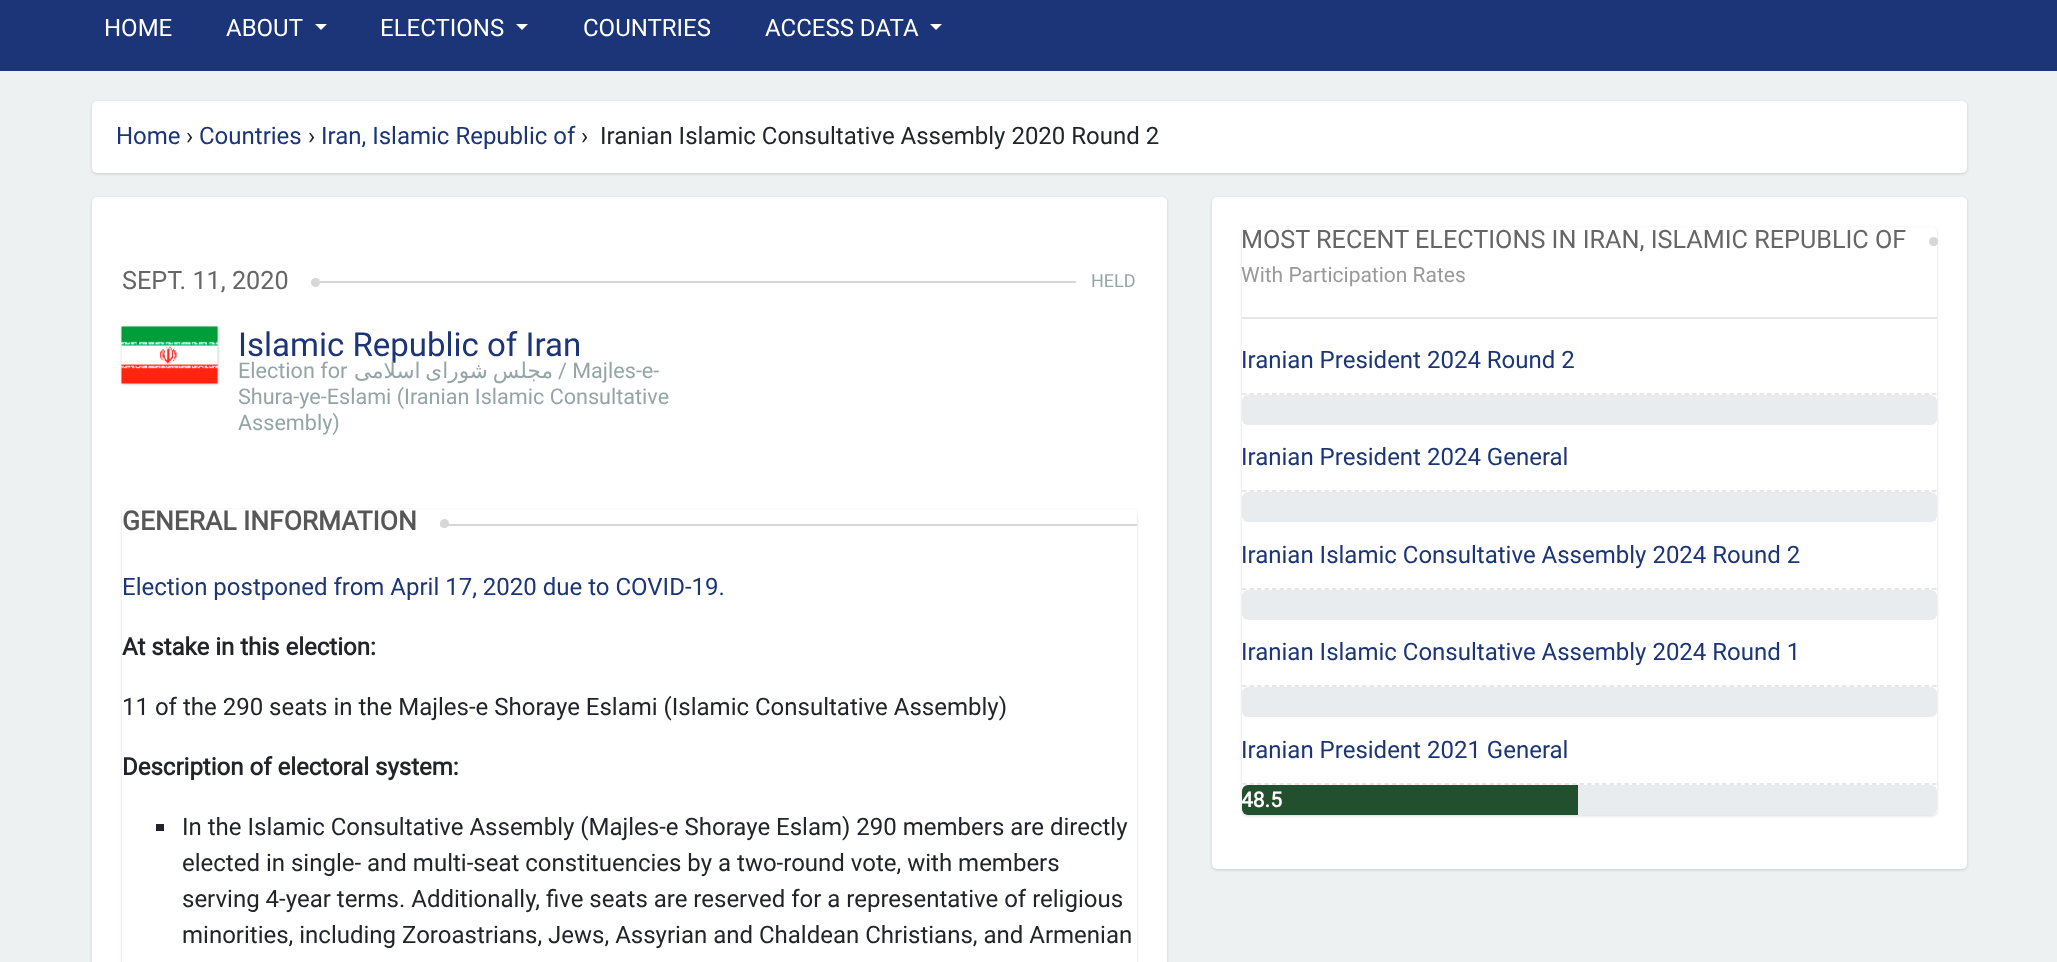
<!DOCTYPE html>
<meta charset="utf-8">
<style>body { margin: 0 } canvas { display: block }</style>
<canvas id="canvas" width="2057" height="962"></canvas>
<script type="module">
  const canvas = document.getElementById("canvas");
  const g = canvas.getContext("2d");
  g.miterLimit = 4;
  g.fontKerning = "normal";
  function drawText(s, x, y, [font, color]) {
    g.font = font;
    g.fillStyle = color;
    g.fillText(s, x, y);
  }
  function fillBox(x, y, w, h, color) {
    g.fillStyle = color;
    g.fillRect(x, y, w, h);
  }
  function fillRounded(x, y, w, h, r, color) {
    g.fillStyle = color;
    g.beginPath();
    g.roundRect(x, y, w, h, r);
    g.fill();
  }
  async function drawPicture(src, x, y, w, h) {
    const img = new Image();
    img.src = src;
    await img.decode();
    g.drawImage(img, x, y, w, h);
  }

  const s1 = ["24px Roboto", "#FFFFFF"];
  const s2 = ["24px Roboto", "#1B3578"];
  const s3 = ["24px Roboto", "#212529"];
  const s4 = ["25.2px Roboto", "#666666"];
  const s5 = ["18px Roboto", "#95A5A6"];
  const s6 = ["33px Roboto", "#1B3578"];
  const s7 = ["21.6px Roboto", "#95A5A6"];
  const s8 = ["21.6px DejaVu Sans", "#95A5A6"];
  const s9 = ["bold 26.4px Roboto", "#575757"];
  const s10 = ["bold 24px Roboto", "#212529"];
  const s11 = ["21px Roboto", "#999999"];
  const s12 = ["bold 21px Roboto", "#FFFFFF"];

  fillBox(0, 0, 2057, 962, "#EEF1F2");
  fillBox(0, 0, 2057, 71, "#1B3578");
  drawText("HOME", 104, 36, s1);
  drawText("ABOUT", 226, 36, s1);
  g.beginPath();
  g.moveTo(315, 24);
  g.lineTo(327, 24);
  g.lineTo(321, 30);
  g.closePath();
  g.fill();
  drawText("ELECTIONS", 380, 36, s1);
  g.beginPath();
  g.moveTo(516, 24);
  g.lineTo(528, 24);
  g.lineTo(522, 30);
  g.closePath();
  g.fill();
  drawText("COUNTRIES", 583, 36, s1);
  drawText("ACCESS DATA", 765, 36, s1);
  g.beginPath();
  g.moveTo(930, 24);
  g.lineTo(942, 24);
  g.lineTo(936, 30);
  g.closePath();
  g.fill();
  g.fillStyle = "rgba(0, 0, 0, 0.15)";
  g.filter = "blur(1.5px)";
  g.beginPath();
  g.roundRect(92, 102, 1875, 72, 5);
  g.fill();
  g.filter = "none";
  fillRounded(92, 101, 1875, 72, 5, "#FFFFFF");
  drawText("Home", 116, 144, s2);
  drawText("›", 186, 144, s3);
  drawText("Countries", 199, 144, s2);
  drawText("›", 308, 144, s3);
  drawText("Iran, Islamic Republic of", 321, 144, s2);
  drawText("›", 581, 144, s3);
  drawText("Iranian Islamic Consultative Assembly 2020 Round 2", 600, 144, s3);
  g.fillStyle = "rgba(0, 0, 0, 0.15)";
  g.filter = "blur(1.5px)";
  g.beginPath();
  g.roundRect(92, 198, 1075, 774, 5);
  g.fill();
  g.filter = "none";
  fillRounded(92, 197, 1075, 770, 5, "#FFFFFF");
  drawText("SEPT. 11, 2020", 122, 289, s4);
  fillBox(311, 281, 765, 2, "#D7D7D7");
  g.beginPath();
  g.arc(315.5, 282.5, 4.5, 0, Math.PI * 2);
  g.fill();
  drawText("HELD", 1091, 287, s5);
  g.fillStyle = "rgba(0, 0, 0, 0.25)";
  g.filter = "blur(1.5px)";
  g.beginPath();
  g.rect(122, 327, 96, 57);
  g.fill();
  g.filter = "none";
  await drawPicture("pic1.png", 121, 326, 97, 58);
  drawText("Islamic Republic of Iran", 238, 356, s6);
  drawText("Election for", 238, 378, s7);
  g.wordSpacing = "-2px";
  g.direction = "rtl";
  drawText("مجلس شورای اسلامی", 553, 378, s8);
  g.wordSpacing = "0px";
  g.direction = "ltr";
  drawText("/ Majles-e-", 558, 378, s7);
  drawText("Shura-ye-Eslami (Iranian Islamic Consultative", 238, 404, s7);
  drawText("Assembly)", 238, 430, s7);
  g.save();
  g.beginPath();
  g.moveTo(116, 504);
  g.lineTo(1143, 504);
  g.lineTo(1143, 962);
  g.lineTo(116, 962);
  g.closePath();
  g.moveTo(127, 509);
  g.lineTo(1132, 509);
  g.bezierCurveTo(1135, 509, 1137, 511, 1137, 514);
  g.lineTo(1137, 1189);
  g.bezierCurveTo(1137, 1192, 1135, 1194, 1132, 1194);
  g.lineTo(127, 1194);
  g.bezierCurveTo(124, 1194, 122, 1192, 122, 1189);
  g.lineTo(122, 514);
  g.bezierCurveTo(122, 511, 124, 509, 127, 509);
  g.closePath();
  g.clip("evenodd");
  g.fillStyle = "rgba(0, 0, 0, 0.15)";
  g.filter = "blur(1.5px)";
  g.beginPath();
  g.roundRect(122, 510, 1015, 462, 5);
  g.fill();
  g.filter = "none";
  g.restore();
  drawText("GENERAL INFORMATION", 122, 530, s9);
  fillBox(440, 524, 697, 2, "#D7D7D7");
  g.beginPath();
  g.arc(444.5, 523.5, 4.5, 0, Math.PI * 2);
  g.fill();
  drawText("Election postponed from April 17, 2020 due to COVID-19.", 122, 595, s2);
  drawText("At stake in this election:", 122, 655, s10);
  drawText("11 of the 290 seats in the Majles-e Shoraye Eslami (Islamic Consultative Assembly)", 122, 715, s3);
  drawText("Description of electoral system:", 122, 775, s10);
  fillBox(156, 824, 8, 7, "#212529");
  drawText("In the Islamic Consultative Assembly (Majles-e Shoraye Eslam) 290 members are directly", 182, 835, s3);
  drawText("elected in single- and multi-seat constituencies by a two-round vote, with members", 182, 871, s3);
  drawText("serving 4-year terms. Additionally, five seats are reserved for a representative of religious", 182, 907, s3);
  drawText("minorities, including Zoroastrians, Jews, Assyrian and Chaldean Christians, and Armenian", 182, 943, s3);
  g.fillStyle = "rgba(0, 0, 0, 0.15)";
  g.filter = "blur(1.5px)";
  g.beginPath();
  g.roundRect(1212, 198, 755, 672, 5);
  g.fill();
  g.filter = "none";
  fillRounded(1212, 197, 755, 672, 5, "#FFFFFF");
  g.fillStyle = "rgba(0, 0, 0, 0.15)";
  g.filter = "blur(1.5px)";
  g.beginPath();
  g.roundRect(1242, 228, 695, 588, 5);
  g.fill();
  g.filter = "none";
  fillRounded(1242, 227, 695, 588, 5, "#FFFFFF");
  fillBox(1242, 227, 4, 4, "#FFFFFF");
  drawText("MOST RECENT ELECTIONS IN IRAN, ISLAMIC REPUBLIC OF", 1241, 248, s4);
  g.fillStyle = "#D7D7D7";
  g.beginPath();
  g.arc(1933.5, 241.5, 4.5, 0, Math.PI * 2);
  g.fill();
  drawText("With Participation Rates", 1241, 282, s11);
  fillBox(1242, 317, 695, 2, "#E6E6E6");
  g.beginPath();
  g.moveTo(1242, 394);
  g.lineTo(1936.5, 394);
  g.strokeStyle = "#E0E0E0";
  g.lineWidth = 1.5;
  g.setLineDash([4.5, 3]);
  g.stroke();
  drawText("Iranian President 2024 Round 2", 1241, 368, s2);
  fillRounded(1242, 395, 695, 30, 6, "#E9ECEF");
  g.beginPath();
  g.moveTo(1242, 491);
  g.lineTo(1936.5, 491);
  g.stroke();
  drawText("Iranian President 2024 General", 1241, 465, s2);
  fillRounded(1242, 492, 695, 30, 6, "#E9ECEF");
  g.beginPath();
  g.moveTo(1242, 589);
  g.lineTo(1936.5, 589);
  g.stroke();
  drawText("Iranian Islamic Consultative Assembly 2024 Round 2", 1241, 563, s2);
  fillRounded(1242, 590, 695, 30, 6, "#E9ECEF");
  g.beginPath();
  g.moveTo(1242, 686);
  g.lineTo(1936.5, 686);
  g.stroke();
  drawText("Iranian Islamic Consultative Assembly 2024 Round 1", 1241, 660, s2);
  fillRounded(1242, 687, 695, 30, 6, "#E9ECEF");
  g.beginPath();
  g.moveTo(1242, 784);
  g.lineTo(1936.5, 784);
  g.stroke();
  drawText("Iranian President 2021 General", 1241, 758, s2);
  fillRounded(1242, 785, 695, 30, 6, "#E9ECEF");
  g.fillStyle = "#224F2D";
  g.beginPath();
  g.roundRect(1242, 785, 336, 30, [6, 0, 0, 6]);
  g.fill();
  drawText("48.5", 1241, 807, s12);
</script>
